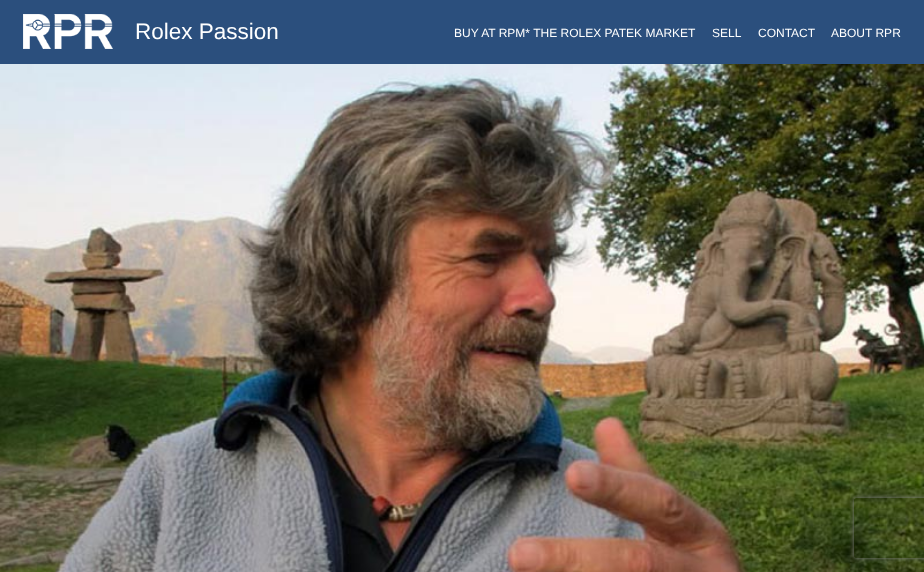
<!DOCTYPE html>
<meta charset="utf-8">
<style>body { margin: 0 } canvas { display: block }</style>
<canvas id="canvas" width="924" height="572"></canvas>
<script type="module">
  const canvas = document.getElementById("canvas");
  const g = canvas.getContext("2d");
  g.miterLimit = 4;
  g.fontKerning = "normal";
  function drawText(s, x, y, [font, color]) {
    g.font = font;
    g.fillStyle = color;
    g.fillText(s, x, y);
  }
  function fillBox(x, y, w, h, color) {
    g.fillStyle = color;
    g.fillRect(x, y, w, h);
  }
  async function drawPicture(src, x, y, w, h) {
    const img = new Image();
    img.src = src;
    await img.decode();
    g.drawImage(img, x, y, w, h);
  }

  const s1 = ["22.5px Liberation Sans", "#FFFFFF"];
  const s2 = ["12px Liberation Sans", "#FFFFFF"];

  fillBox(0, 0, 924, 572, "#FFFFFF");
  fillBox(0, 0, 924, 64, "#2B4F7D");
  await drawPicture("pic1.png", 23, 14, 90, 35);
  drawText("Rolex Passion", 135, 39, s1);
  drawText("BUY AT RPM* THE ROLEX PATEK MARKET", 454, 37, s2);
  drawText("SELL", 712, 37, s2);
  drawText("CONTACT", 758, 37, s2);
  drawText("ABOUT RPR", 831, 37, s2);
  await drawPicture("pic2.png", 0, 64, 924, 508);
  g.save();
  g.beginPath();
  g.moveTo(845, 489);
  g.lineTo(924, 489);
  g.lineTo(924, 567);
  g.lineTo(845, 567);
  g.closePath();
  g.moveTo(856, 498);
  g.lineTo(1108, 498);
  g.bezierCurveTo(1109, 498, 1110, 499, 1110, 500);
  g.lineTo(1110, 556);
  g.bezierCurveTo(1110, 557, 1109, 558, 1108, 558);
  g.lineTo(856, 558);
  g.bezierCurveTo(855, 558, 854, 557, 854, 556);
  g.lineTo(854, 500);
  g.bezierCurveTo(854, 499, 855, 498, 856, 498);
  g.closePath();
  g.clip("evenodd");
  g.fillStyle = "#808080";
  g.filter = "blur(2.5px)";
  g.beginPath();
  g.roundRect(854, 498, 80, 60, 2);
  g.fill();
  g.filter = "none";
  g.restore();
</script>
